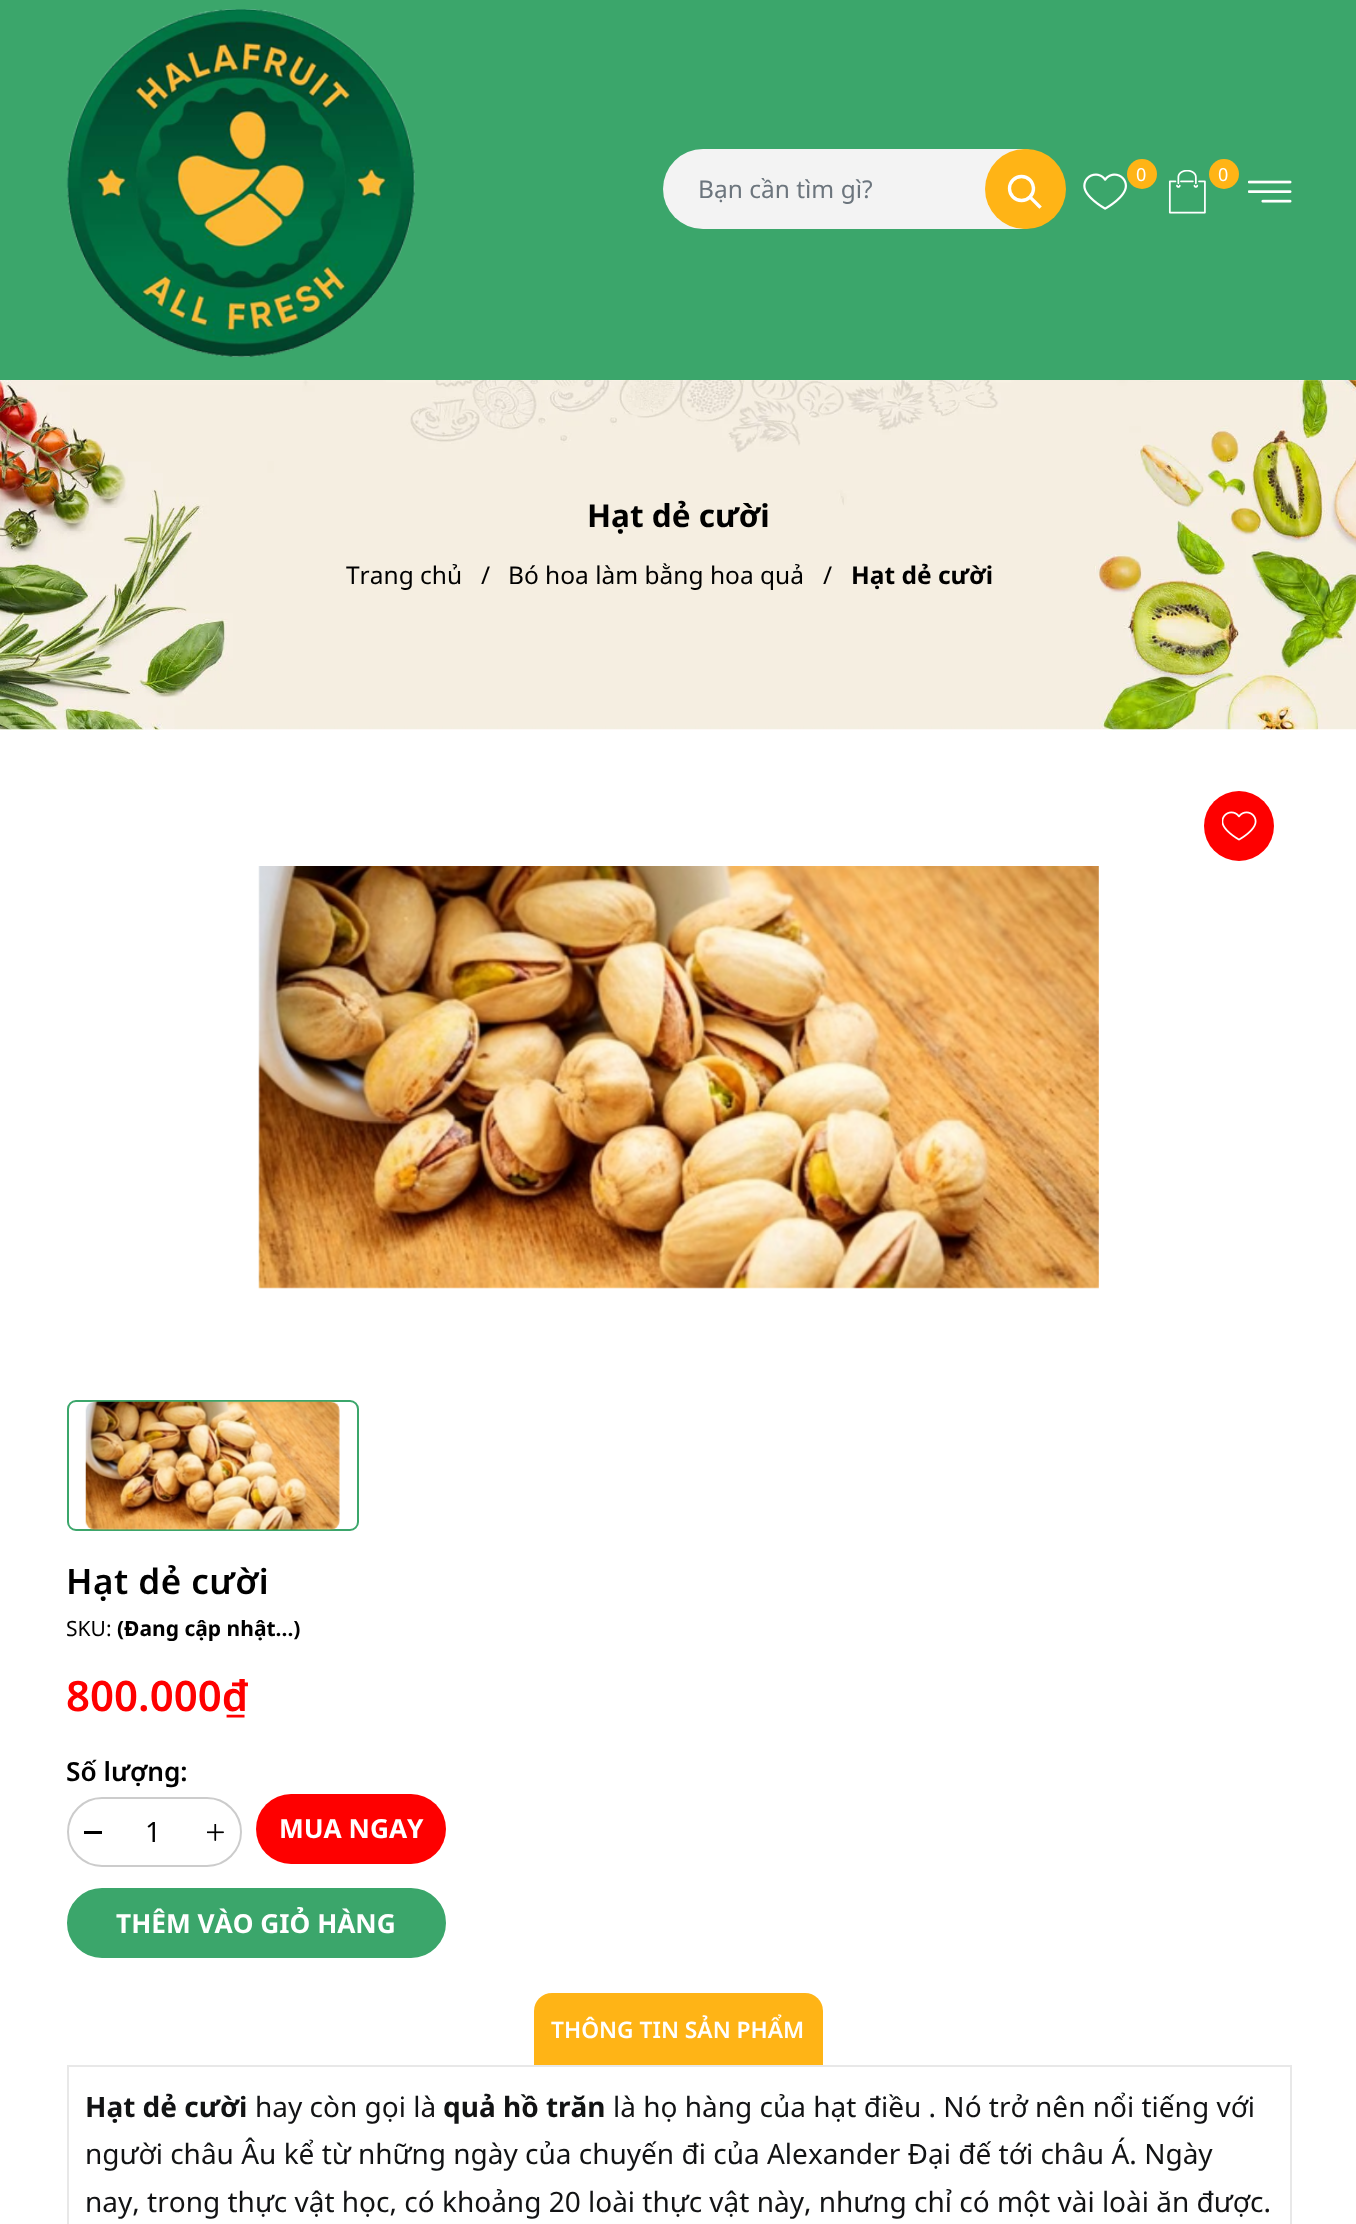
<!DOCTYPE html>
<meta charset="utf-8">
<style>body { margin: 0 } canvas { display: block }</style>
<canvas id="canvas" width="1356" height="2224"></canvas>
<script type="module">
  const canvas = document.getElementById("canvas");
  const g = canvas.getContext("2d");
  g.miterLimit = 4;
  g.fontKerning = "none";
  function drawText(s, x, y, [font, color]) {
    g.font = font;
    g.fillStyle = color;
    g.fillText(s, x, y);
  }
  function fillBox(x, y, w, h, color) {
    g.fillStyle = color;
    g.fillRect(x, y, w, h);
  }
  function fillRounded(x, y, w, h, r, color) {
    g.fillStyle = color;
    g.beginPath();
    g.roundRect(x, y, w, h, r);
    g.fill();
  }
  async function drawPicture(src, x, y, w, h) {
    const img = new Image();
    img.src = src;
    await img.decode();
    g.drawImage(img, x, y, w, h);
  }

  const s1 = ["18px Noto Sans", "#FFFFFF"];
  const s2 = ["24.5px Noto Sans", "#6C757D"];
  const s3 = ["bold 31.5px Noto Sans", "#000000"];
  const s4 = ["24.5px Noto Sans", "#000000"];
  const s5 = ["bold 24.5px Noto Sans", "#000000"];
  const s6 = ["600 35px Noto Sans", "#000000"];
  const s7 = ["21px Noto Sans", "#000000"];
  const s8 = ["bold 21px Noto Sans", "#000000"];
  const s9 = ["600 42px Noto Sans", "#FE0000"];
  const s10 = ["600 26.25px Noto Sans", "#000000"];
  const s11 = ["28px Noto Sans", "#000000"];
  const s12 = ["bold 26.25px Noto Sans", "#FFFFFF"];
  const s13 = ["600 22.75px Noto Sans", "#FFFFFF"];
  const s14 = ["bold 28px Noto Sans", "#121314"];
  const s15 = ["28px Noto Sans", "#121314"];

  fillBox(0, 0, 1356, 2224, "#FFFFFF");
  fillBox(0, 0, 1356, 380, "#3BA66B");
  await drawPicture("pic1.png", 66, 9, 349, 348);
  await drawPicture("pic2.png", 1083, 173, 44, 37);
  g.fillStyle = "#FFB416";
  g.beginPath();
  g.arc(1142, 174, 15, 0, Math.PI * 2);
  g.fill();
  drawText("0", 1136, 181, s1);
  await drawPicture("pic3.png", 1168, 170, 38, 44);
  g.fillStyle = "#FFB416";
  g.beginPath();
  g.arc(1224, 174, 15, 0, Math.PI * 2);
  g.fill();
  drawText("0", 1218, 181, s1);
  await drawPicture("pic4.png", 1248, 180, 44, 23);
  fillRounded(663, 149, 398, 80, 40, "#F3F3F3");
  drawText("Bạn cần tìm gì?", 698, 198, s2);
  fillRounded(985, 149, 81, 80, 40, "#FFB416");
  g.beginPath();
  g.moveTo(1039.5, 206.5);
  g.lineTo(1030, 197);
  g.strokeStyle = "#FFFFFF";
  g.lineWidth = 3.3;
  g.lineCap = "square";
  g.stroke();
  g.beginPath();
  g.arc(1021.5, 188.5, 12, 0, Math.PI * 2);
  g.stroke();
  await drawPicture("pic5.png", 0, 380, 1356, 350);
  drawText("Hạt dẻ cười", 587, 527, s3);
  drawText("Trang chủ", 346, 584, s4);
  drawText("/", 481, 584, s4);
  drawText("Bó hoa làm bằng hoa quả", 508, 584, s4);
  drawText("/", 823, 584, s4);
  drawText("Hạt dẻ cười", 851, 584, s5);
  g.fillStyle = "#FE0000";
  g.beginPath();
  g.arc(1239, 826, 35, 0, Math.PI * 2);
  g.fill();
  await drawPicture("pic6.png", 1222, 811, 35, 30);
  await drawPicture("pic7.png", 258, 866, 841, 423);
  g.beginPath();
  g.roundRect(68, 1401, 290, 129, 8);
  g.strokeStyle = "#3BA66B";
  g.lineWidth = 2;
  g.stroke();
  await drawPicture("pic8.png", 85, 1401, 255, 129);
  g.letterSpacing = "0.5px";
  drawText("Hạt dẻ cười", 66, 1594, s6);
  g.letterSpacing = "0px";
  drawText("SKU:", 66, 1636, s7);
  drawText("(Đang cập nhật...)", 117, 1636, s8);
  drawText("800.000₫", 66, 1711, s9);
  drawText("Số lượng:", 66, 1781, s10);
  g.beginPath();
  g.roundRect(68, 1798, 173, 68, 34);
  g.strokeStyle = "#CCCCCC";
  g.stroke();
  fillBox(84, 1831, 18, 3, "#000000");
  drawText("1", 145, 1842, s11);
  await drawPicture("pic9.png", 207, 1824, 17, 17);
  fillRounded(256, 1794, 190, 70, 35, "#FE0000");
  drawText("MUA NGAY", 279, 1838, s12);
  g.fillStyle = "#3BA66B";
  g.beginPath();
  g.roundRect(68, 1889, 377, 68, 34);
  g.fill();
  g.strokeStyle = "#3BA66B";
  g.stroke();
  drawText("THÊM VÀO GIỎ HÀNG", 116, 1933, s12);
  g.fillStyle = "#FFB416";
  g.beginPath();
  g.roundRect(534, 1993, 289, 72, [18, 18, 0, 0]);
  g.fill();
  drawText("THÔNG TIN SẢN PHẨM", 551, 2038, s13);
  g.strokeStyle = "#E8E8E8";
  g.strokeRect(68, 2066, 1223, 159);
  drawText("Hạt dẻ cười", 85, 2117, s14);
  drawText("hay còn gọi là", 255, 2117, s15);
  drawText("quả hồ trăn", 443, 2117, s14);
  drawText("là họ hàng của hạt điều . Nó trở nên nổi tiếng với", 613, 2117, s15);
  drawText("người châu Âu kể từ những ngày của chuyến đi của Alexander Đại đế tới châu Á. Ngày", 85, 2164, s15);
  drawText("nay, trong thực vật học, có khoảng 20 loài thực vật này, nhưng chỉ có một vài loài ăn được.", 85, 2212, s15);
</script>
